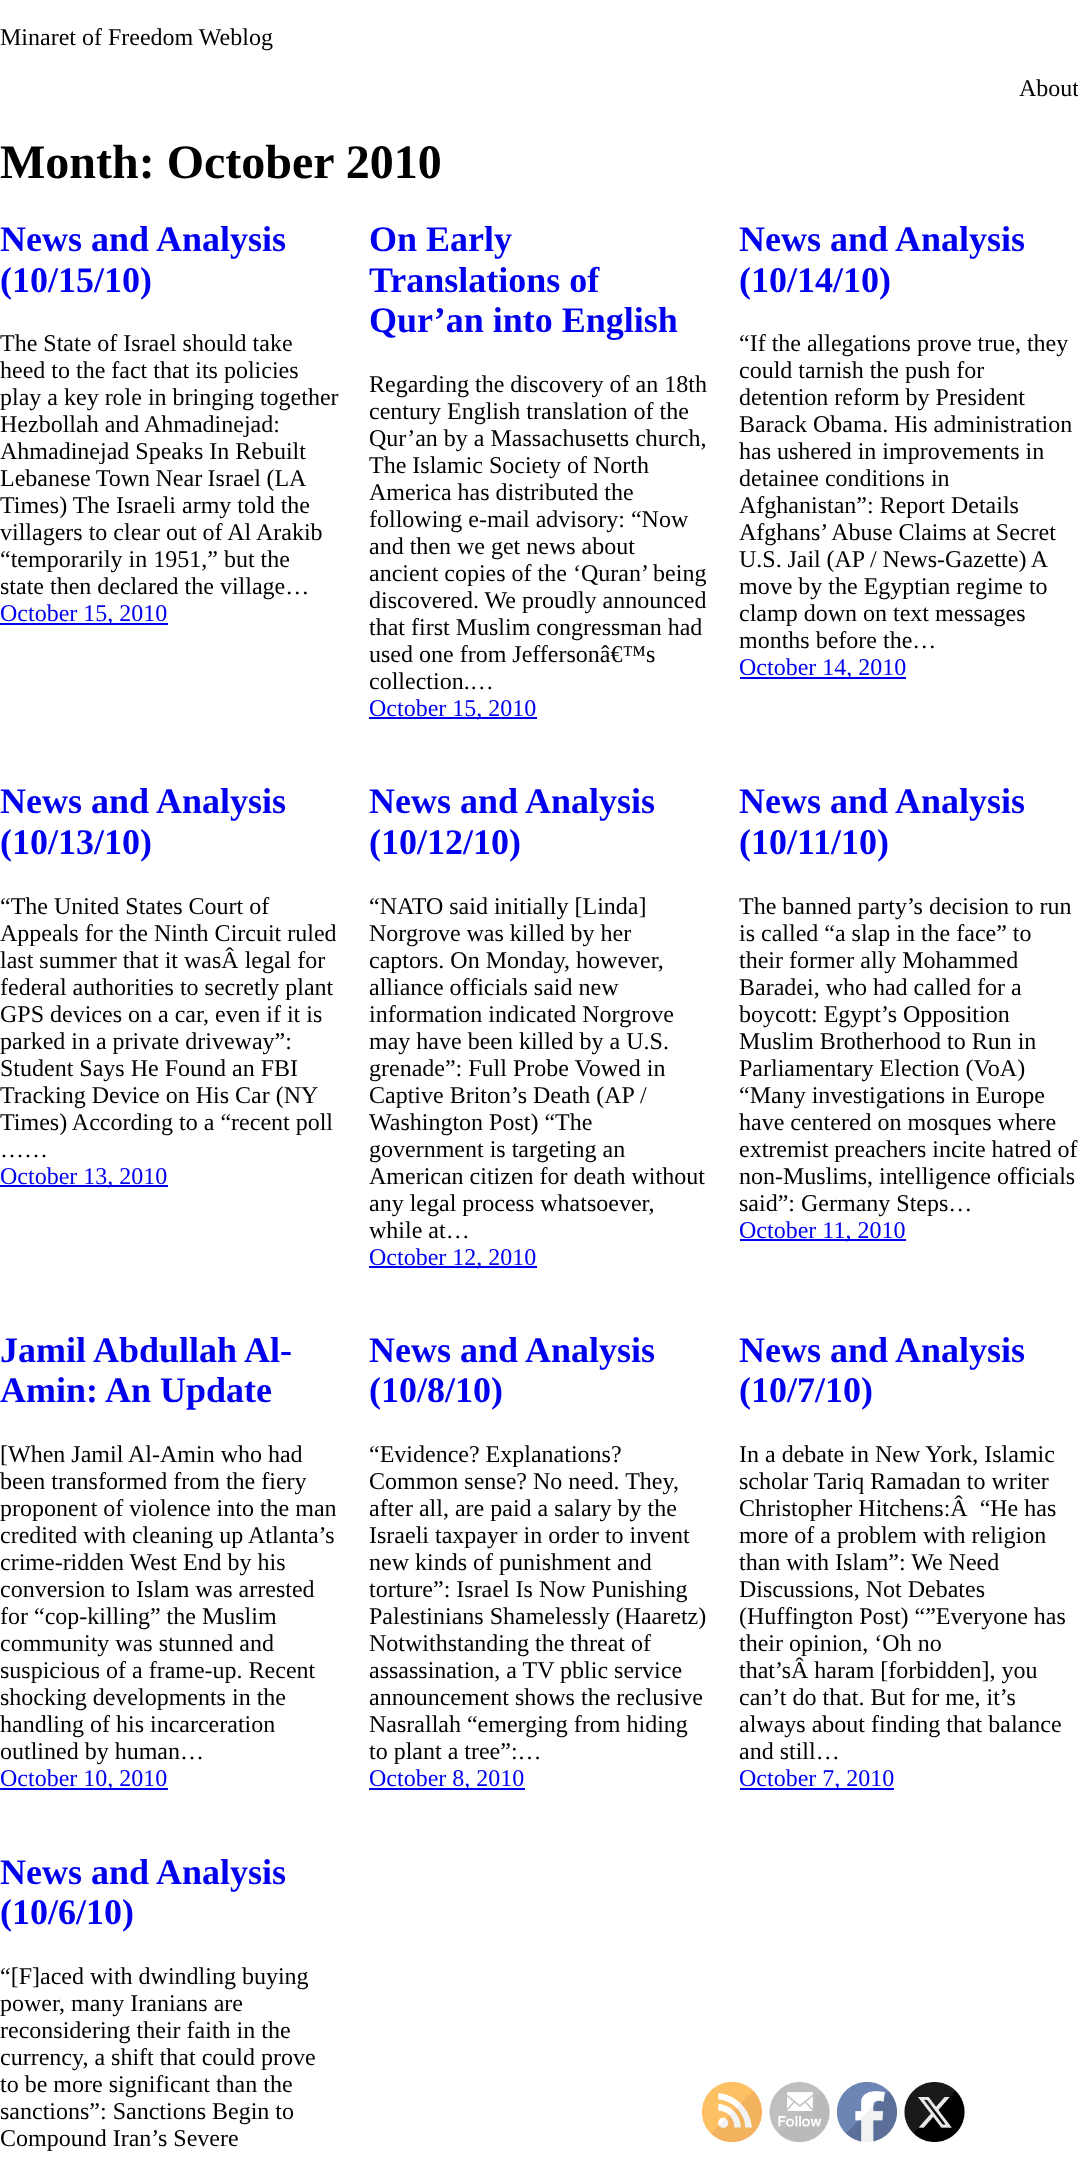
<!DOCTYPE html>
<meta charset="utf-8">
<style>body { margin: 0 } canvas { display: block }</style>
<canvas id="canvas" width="1078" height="2157"></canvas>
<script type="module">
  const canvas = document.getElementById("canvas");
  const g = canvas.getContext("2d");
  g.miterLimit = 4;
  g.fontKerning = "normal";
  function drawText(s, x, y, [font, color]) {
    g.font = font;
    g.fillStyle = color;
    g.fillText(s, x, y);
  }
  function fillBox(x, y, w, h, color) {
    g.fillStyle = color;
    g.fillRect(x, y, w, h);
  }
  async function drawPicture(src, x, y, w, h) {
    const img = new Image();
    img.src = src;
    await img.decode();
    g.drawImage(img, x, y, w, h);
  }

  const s1 = ["24px Liberation Serif", "#000000"];
  const s2 = ["bold 48px Liberation Serif", "#000000"];
  const s3 = ["bold 36px Liberation Serif", "#0000EE"];
  const s4 = ["24px Liberation Serif", "#0000EE"];

  fillBox(0, 0, 1078, 2157, "#FFFFFF");
  drawText("Minaret of Freedom Weblog", 0, 45, s1);
  drawText("About", 1019, 96, s1);
  drawText("Month: October 2010", 0, 178, s2);
  drawText("News and Analysis", 0, 251, s3);
  drawText("(10/15/10)", 0, 292, s3);
  drawText("The State of Israel should take", 0, 351, s1);
  drawText("heed to the fact that its policies", 0, 378, s1);
  drawText("play a key role in bringing together", 0, 405, s1);
  drawText("Hezbollah and Ahmadinejad:", 0, 432, s1);
  drawText("Ahmadinejad Speaks In Rebuilt", 0, 459, s1);
  g.wordSpacing = "-0.5px";
  drawText("Lebanese Town Near Israel (LA", 0, 486, s1);
  g.wordSpacing = "0px";
  drawText("Times) The Israeli army told the", 0, 513, s1);
  drawText("villagers to clear out of Al Arakib", 0, 540, s1);
  drawText("“temporarily in 1951,” but the", 0, 567, s1);
  drawText("state then declared the village…", 0, 594, s1);
  fillBox(0, 623, 168, 2, "#0000EE");
  drawText("October 15, 2010", 0, 621, s4);
  drawText("On Early", 369, 251, s3);
  drawText("Translations of", 369, 292, s3);
  drawText("Qur’an into English", 369, 332, s3);
  drawText("Regarding the discovery of an 18th", 369, 392, s1);
  drawText("century English translation of the", 369, 419, s1);
  drawText("Qur’an by a Massachusetts church,", 369, 446, s1);
  drawText("The Islamic Society of North", 369, 473, s1);
  drawText("America has distributed the", 369, 500, s1);
  drawText("following e-mail advisory: “Now", 369, 527, s1);
  drawText("and then we get news about", 369, 554, s1);
  drawText("ancient copies of the ‘Quran’ being", 369, 581, s1);
  drawText("discovered. We proudly announced", 369, 608, s1);
  drawText("that first Muslim congressman had", 369, 635, s1);
  drawText("used one from Jeffersonâ€™s", 369, 662, s1);
  drawText("collection.…", 369, 689, s1);
  fillBox(369, 717, 168, 2, "#0000EE");
  drawText("October 15, 2010", 369, 716, s4);
  drawText("News and Analysis", 739, 251, s3);
  drawText("(10/14/10)", 739, 292, s3);
  drawText("“If the allegations prove true, they", 739, 351, s1);
  drawText("could tarnish the push for", 739, 378, s1);
  drawText("detention reform by President", 739, 405, s1);
  drawText("Barack Obama. His administration", 739, 432, s1);
  drawText("has ushered in improvements in", 739, 459, s1);
  drawText("detainee conditions in", 739, 486, s1);
  drawText("Afghanistan”: Report Details", 739, 513, s1);
  drawText("Afghans’ Abuse Claims at Secret", 739, 540, s1);
  g.wordSpacing = "-0.25px";
  drawText("U.S. Jail (AP / News-Gazette) A", 739, 567, s1);
  g.wordSpacing = "0px";
  drawText("move by the Egyptian regime to", 739, 594, s1);
  drawText("clamp down on text messages", 739, 621, s1);
  drawText("months before the…", 739, 648, s1);
  fillBox(740, 677, 166, 2, "#0000EE");
  drawText("October 14, 2010", 739, 675, s4);
  drawText("News and Analysis", 0, 813, s3);
  drawText("(10/13/10)", 0, 854, s3);
  drawText("“The United States Court of", 0, 914, s1);
  drawText("Appeals for the Ninth Circuit ruled", 0, 941, s1);
  drawText("last summer that it wasÂ legal for", 0, 968, s1);
  drawText("federal authorities to secretly plant", 0, 995, s1);
  drawText("GPS devices on a car, even if it is", 0, 1022, s1);
  drawText("parked in a private driveway”:", 0, 1049, s1);
  drawText("Student Says He Found an FBI", 0, 1076, s1);
  drawText("Tracking Device on His Car (NY", 0, 1103, s1);
  drawText("Times) According to a “recent poll", 0, 1130, s1);
  drawText("……", 0, 1157, s1);
  fillBox(0, 1185, 168, 2, "#0000EE");
  drawText("October 13, 2010", 0, 1184, s4);
  drawText("News and Analysis", 369, 813, s3);
  drawText("(10/12/10)", 369, 854, s3);
  drawText("“NATO said initially [Linda]", 369, 914, s1);
  drawText("Norgrove was killed by her", 369, 941, s1);
  drawText("captors. On Monday, however,", 369, 968, s1);
  drawText("alliance officials said new", 369, 995, s1);
  drawText("information indicated Norgrove", 369, 1022, s1);
  drawText("may have been killed by a U.S.", 369, 1049, s1);
  drawText("grenade”: Full Probe Vowed in", 369, 1076, s1);
  drawText("Captive Briton’s Death (AP /", 369, 1103, s1);
  drawText("Washington Post) “The", 369, 1130, s1);
  drawText("government is targeting an", 369, 1157, s1);
  drawText("American citizen for death without", 369, 1184, s1);
  drawText("any legal process whatsoever,", 369, 1211, s1);
  drawText("while at…", 369, 1238, s1);
  fillBox(369, 1266, 168, 2, "#0000EE");
  drawText("October 12, 2010", 369, 1265, s4);
  drawText("News and Analysis", 739, 813, s3);
  drawText("(10/11/10)", 739, 854, s3);
  drawText("The banned party’s decision to run", 739, 914, s1);
  drawText("is called “a slap in the face” to", 739, 941, s1);
  drawText("their former ally Mohammed", 739, 968, s1);
  drawText("Baradei, who had called for a", 739, 995, s1);
  drawText("boycott: Egypt’s Opposition", 739, 1022, s1);
  drawText("Muslim Brotherhood to Run in", 739, 1049, s1);
  drawText("Parliamentary Election (VoA)", 739, 1076, s1);
  drawText("“Many investigations in Europe", 739, 1103, s1);
  drawText("have centered on mosques where", 739, 1130, s1);
  drawText("extremist preachers incite hatred of", 739, 1157, s1);
  drawText("non-Muslims, intelligence officials", 739, 1184, s1);
  drawText("said”: Germany Steps…", 739, 1211, s1);
  fillBox(740, 1239, 166, 2, "#0000EE");
  drawText("October 11, 2010", 739, 1238, s4);
  drawText("Jamil Abdullah Al-", 0, 1362, s3);
  drawText("Amin: An Update", 0, 1402, s3);
  drawText("[When Jamil Al-Amin who had", 0, 1462, s1);
  drawText("been transformed from the fiery", 0, 1489, s1);
  drawText("proponent of violence into the man", 0, 1516, s1);
  drawText("credited with cleaning up Atlanta’s", 0, 1543, s1);
  drawText("crime-ridden West End by his", 0, 1570, s1);
  drawText("conversion to Islam was arrested", 0, 1597, s1);
  drawText("for “cop-killing” the Muslim", 0, 1624, s1);
  drawText("community was stunned and", 0, 1651, s1);
  drawText("suspicious of a frame-up. Recent", 0, 1678, s1);
  drawText("shocking developments in the", 0, 1705, s1);
  drawText("handling of his incarceration", 0, 1732, s1);
  drawText("outlined by human…", 0, 1759, s1);
  fillBox(0, 1788, 168, 2, "#0000EE");
  drawText("October 10, 2010", 0, 1786, s4);
  drawText("News and Analysis", 369, 1362, s3);
  drawText("(10/8/10)", 369, 1402, s3);
  drawText("“Evidence? Explanations?", 369, 1462, s1);
  drawText("Common sense? No need. They,", 369, 1489, s1);
  drawText("after all, are paid a salary by the", 369, 1516, s1);
  drawText("Israeli taxpayer in order to invent", 369, 1543, s1);
  drawText("new kinds of punishment and", 369, 1570, s1);
  drawText("torture”: Israel Is Now Punishing", 369, 1597, s1);
  drawText("Palestinians Shamelessly (Haaretz)", 369, 1624, s1);
  drawText("Notwithstanding the threat of", 369, 1651, s1);
  drawText("assassination, a TV pblic service", 369, 1678, s1);
  drawText("announcement shows the reclusive", 369, 1705, s1);
  drawText("Nasrallah “emerging from hiding", 369, 1732, s1);
  drawText("to plant a tree”:…", 369, 1759, s1);
  fillBox(369, 1788, 156, 2, "#0000EE");
  drawText("October 8, 2010", 369, 1786, s4);
  drawText("News and Analysis", 739, 1362, s3);
  drawText("(10/7/10)", 739, 1402, s3);
  drawText("In a debate in New York, Islamic", 739, 1462, s1);
  drawText("scholar Tariq Ramadan to writer", 739, 1489, s1);
  drawText("Christopher Hitchens:Â  “He has", 739, 1516, s1);
  drawText("more of a problem with religion", 739, 1543, s1);
  drawText("than with Islam”: We Need", 739, 1570, s1);
  drawText("Discussions, Not Debates", 739, 1597, s1);
  drawText("(Huffington Post) “”Everyone has", 739, 1624, s1);
  drawText("their opinion, ‘Oh no", 739, 1651, s1);
  drawText("that’sÂ haram [forbidden], you", 739, 1678, s1);
  drawText("can’t do that. But for me, it’s", 739, 1705, s1);
  drawText("always about finding that balance", 739, 1732, s1);
  drawText("and still…", 739, 1759, s1);
  fillBox(740, 1788, 154, 2, "#0000EE");
  drawText("October 7, 2010", 739, 1786, s4);
  drawText("News and Analysis", 0, 1884, s3);
  drawText("(10/6/10)", 0, 1924, s3);
  drawText("“[F]aced with dwindling buying", 0, 1984, s1);
  drawText("power, many Iranians are", 0, 2011, s1);
  drawText("reconsidering their faith in the", 0, 2038, s1);
  drawText("currency, a shift that could prove", 0, 2065, s1);
  drawText("to be more significant than the", 0, 2092, s1);
  drawText("sanctions”: Sanctions Begin to", 0, 2119, s1);
  drawText("Compound Iran’s Severe", 0, 2146, s1);
  await drawPicture("pic1.png", 702, 2082, 60, 60);
  await drawPicture("pic2.png", 769, 2082, 61, 60);
  await drawPicture("pic3.png", 837, 2082, 60, 60);
  await drawPicture("pic4.png", 904, 2082, 61, 60);
</script>
